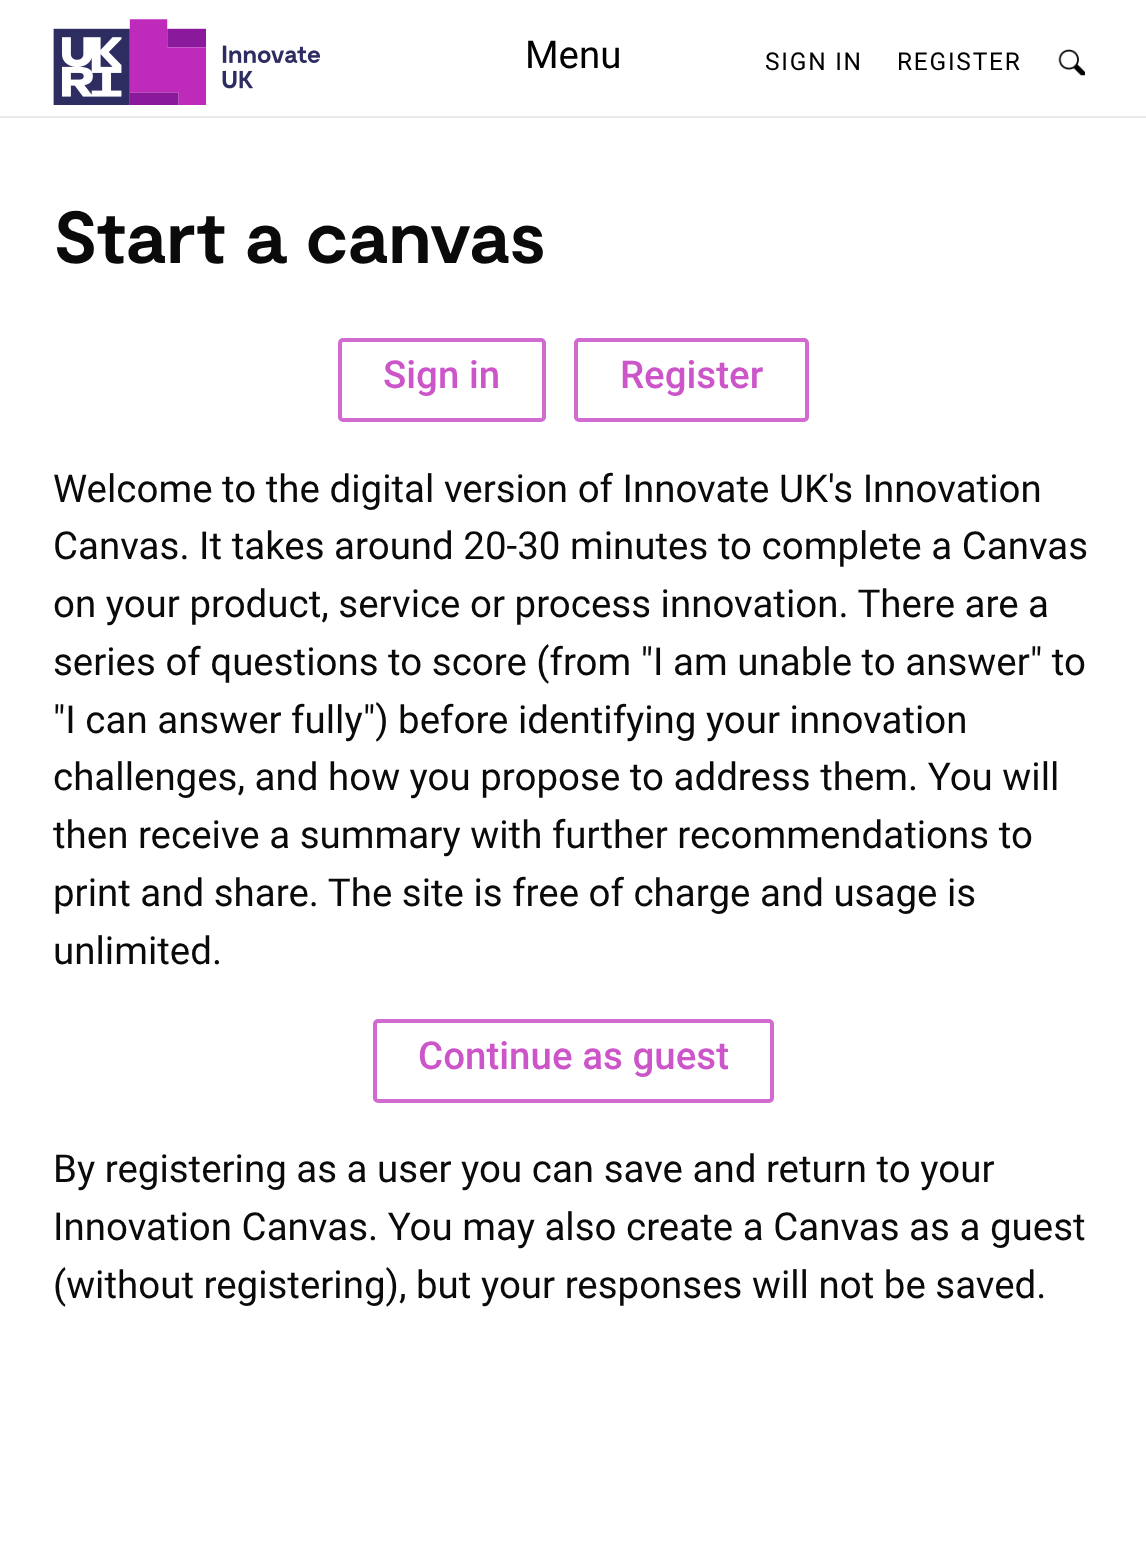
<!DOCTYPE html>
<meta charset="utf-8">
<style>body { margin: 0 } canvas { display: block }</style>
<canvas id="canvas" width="1146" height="1564"></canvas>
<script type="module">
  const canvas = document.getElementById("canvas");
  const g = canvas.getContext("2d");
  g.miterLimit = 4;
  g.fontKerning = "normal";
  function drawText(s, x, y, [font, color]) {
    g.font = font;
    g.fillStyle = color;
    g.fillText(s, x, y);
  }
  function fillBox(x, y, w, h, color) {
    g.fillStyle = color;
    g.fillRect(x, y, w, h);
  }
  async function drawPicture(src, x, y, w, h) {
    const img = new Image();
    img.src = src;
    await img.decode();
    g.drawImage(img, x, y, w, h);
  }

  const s1 = ["38.5px Roboto", "#000000"];
  const s2 = ["24.5px Roboto", "#000000"];
  const s3 = ["bold 73.5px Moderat", "#0A0A0A"];
  const s4 = ["500 38.5px Roboto", "#CB55C9"];
  const s5 = ["38.5px Roboto", "#0A0A0A"];

  fillBox(0, 0, 1146, 1564, "#FFFFFF");
  fillBox(0, 116, 1146, 2, "#EAEAEA");
  await drawPicture("pic1.png", 53, 19, 267, 86);
  drawText("Menu", 525, 68, s1);
  g.letterSpacing = "1.75px";
  drawText("SIGN IN", 765, 70, s2);
  drawText("REGISTER", 897, 70, s2);
  await drawPicture("pic2.png", 1058, 49, 27, 27);
  g.letterSpacing = "0px";
  drawText("Start a canvas", 53, 263, s3);
  g.beginPath();
  g.roundRect(340, 340, 204, 80, 3);
  g.strokeStyle = "#D26BCF";
  g.lineWidth = 4;
  g.stroke();
  drawText("Sign in", 383, 388, s4);
  g.beginPath();
  g.roundRect(576, 340, 231, 80, 3);
  g.stroke();
  drawText("Register", 620, 388, s4);
  drawText("Welcome to the digital version of Innovate UK's Innovation", 53, 502, s5);
  drawText("Canvas. It takes around 20-30 minutes to complete a Canvas", 53, 559, s5);
  drawText("on your product, service or process innovation. There are a", 53, 617, s5);
  drawText("series of questions to score (from \"I am unable to answer\" to", 53, 675, s5);
  drawText("\"I can answer fully\") before identifying your innovation", 53, 733, s5);
  drawText("challenges, and how you propose to address them. You will", 53, 790, s5);
  drawText("then receive a summary with further recommendations to", 53, 848, s5);
  drawText("print and share. The site is free of charge and usage is", 53, 906, s5);
  drawText("unlimited.", 53, 964, s5);
  g.beginPath();
  g.roundRect(375, 1021, 397, 80, 3);
  g.stroke();
  drawText("Continue as guest", 418, 1069, s4);
  drawText("By registering as a user you can save and return to your", 53, 1182, s5);
  drawText("Innovation Canvas. You may also create a Canvas as a guest", 53, 1240, s5);
  drawText("(without registering), but your responses will not be saved.", 53, 1298, s5);
</script>
